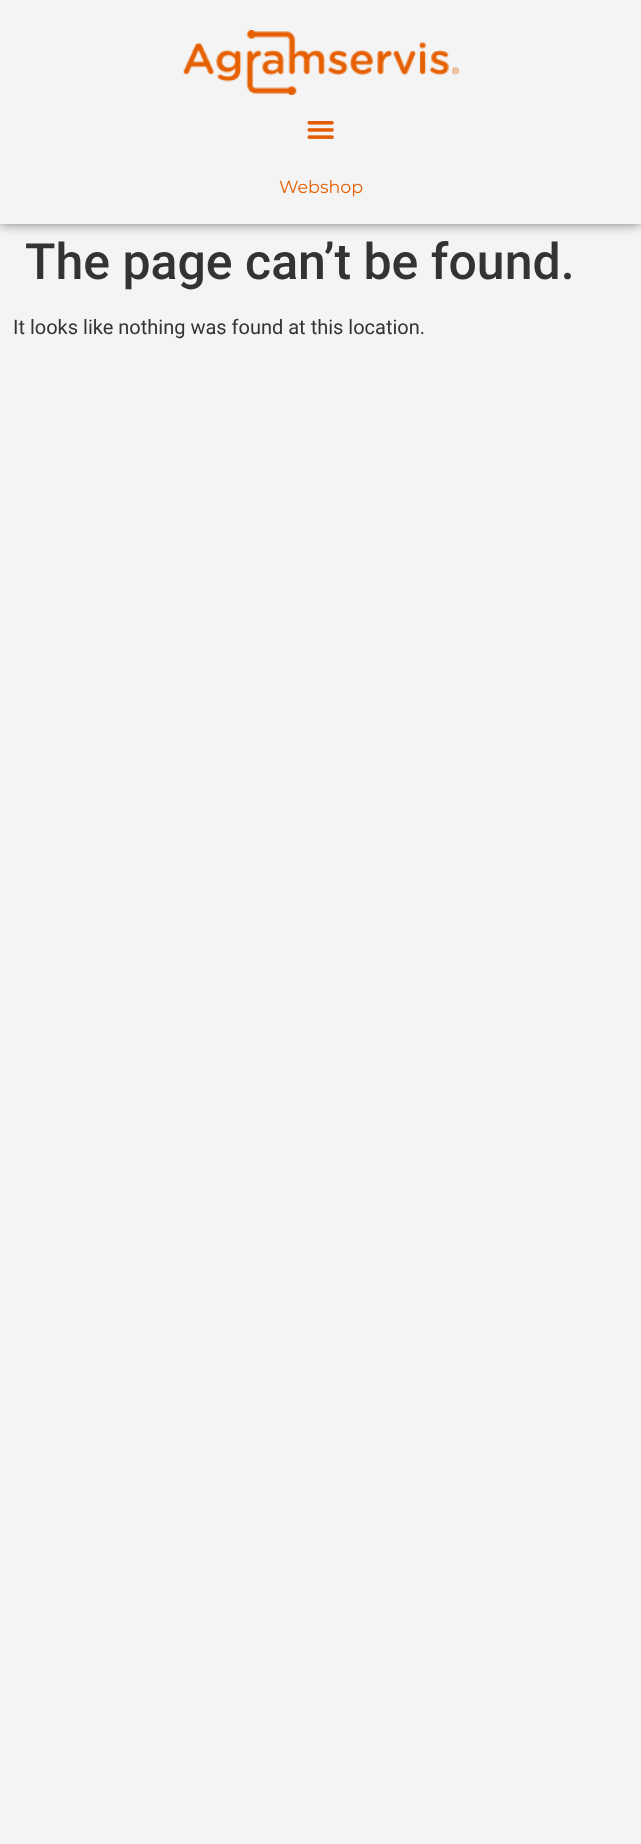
<!DOCTYPE html>
<meta charset="utf-8">
<style>body { margin: 0 } canvas { display: block }</style>
<canvas id="canvas" width="641" height="1844"></canvas>
<script type="module">
  const canvas = document.getElementById("canvas");
  const g = canvas.getContext("2d");
  g.miterLimit = 4;
  g.fontKerning = "normal";
  function drawText(s, x, y, [font, color]) {
    g.font = font;
    g.fillStyle = color;
    g.fillText(s, x, y);
  }
  function fillBox(x, y, w, h, color) {
    g.fillStyle = color;
    g.fillRect(x, y, w, h);
  }
  async function drawPicture(src, x, y, w, h) {
    const img = new Image();
    img.src = src;
    await img.decode();
    g.drawImage(img, x, y, w, h);
  }

  const s1 = ["17.5px Montserrat", "#E65F00"];
  const s2 = ["500 50px Roboto", "#333333"];
  const s3 = ["20px Roboto", "#333333"];

  fillBox(0, 0, 641, 1844, "#F4F4F4");
  g.fillStyle = "rgba(0, 0, 0, 0.5)";
  g.filter = "blur(6px)";
  g.beginPath();
  g.rect(0, 0, 641, 224);
  g.fill();
  g.filter = "none";
  fillBox(0, 0, 641, 224, "#F4F4F4");
  await drawPicture("pic1.png", 183, 30, 276, 65);
  await drawPicture("pic2.png", 307, 121, 27, 18);
  drawText("Webshop", 279, 193, s1);
  drawText("The page can’t be found.", 25, 279, s2);
  drawText("It looks like nothing was found at this location.", 13, 334, s3);
</script>
